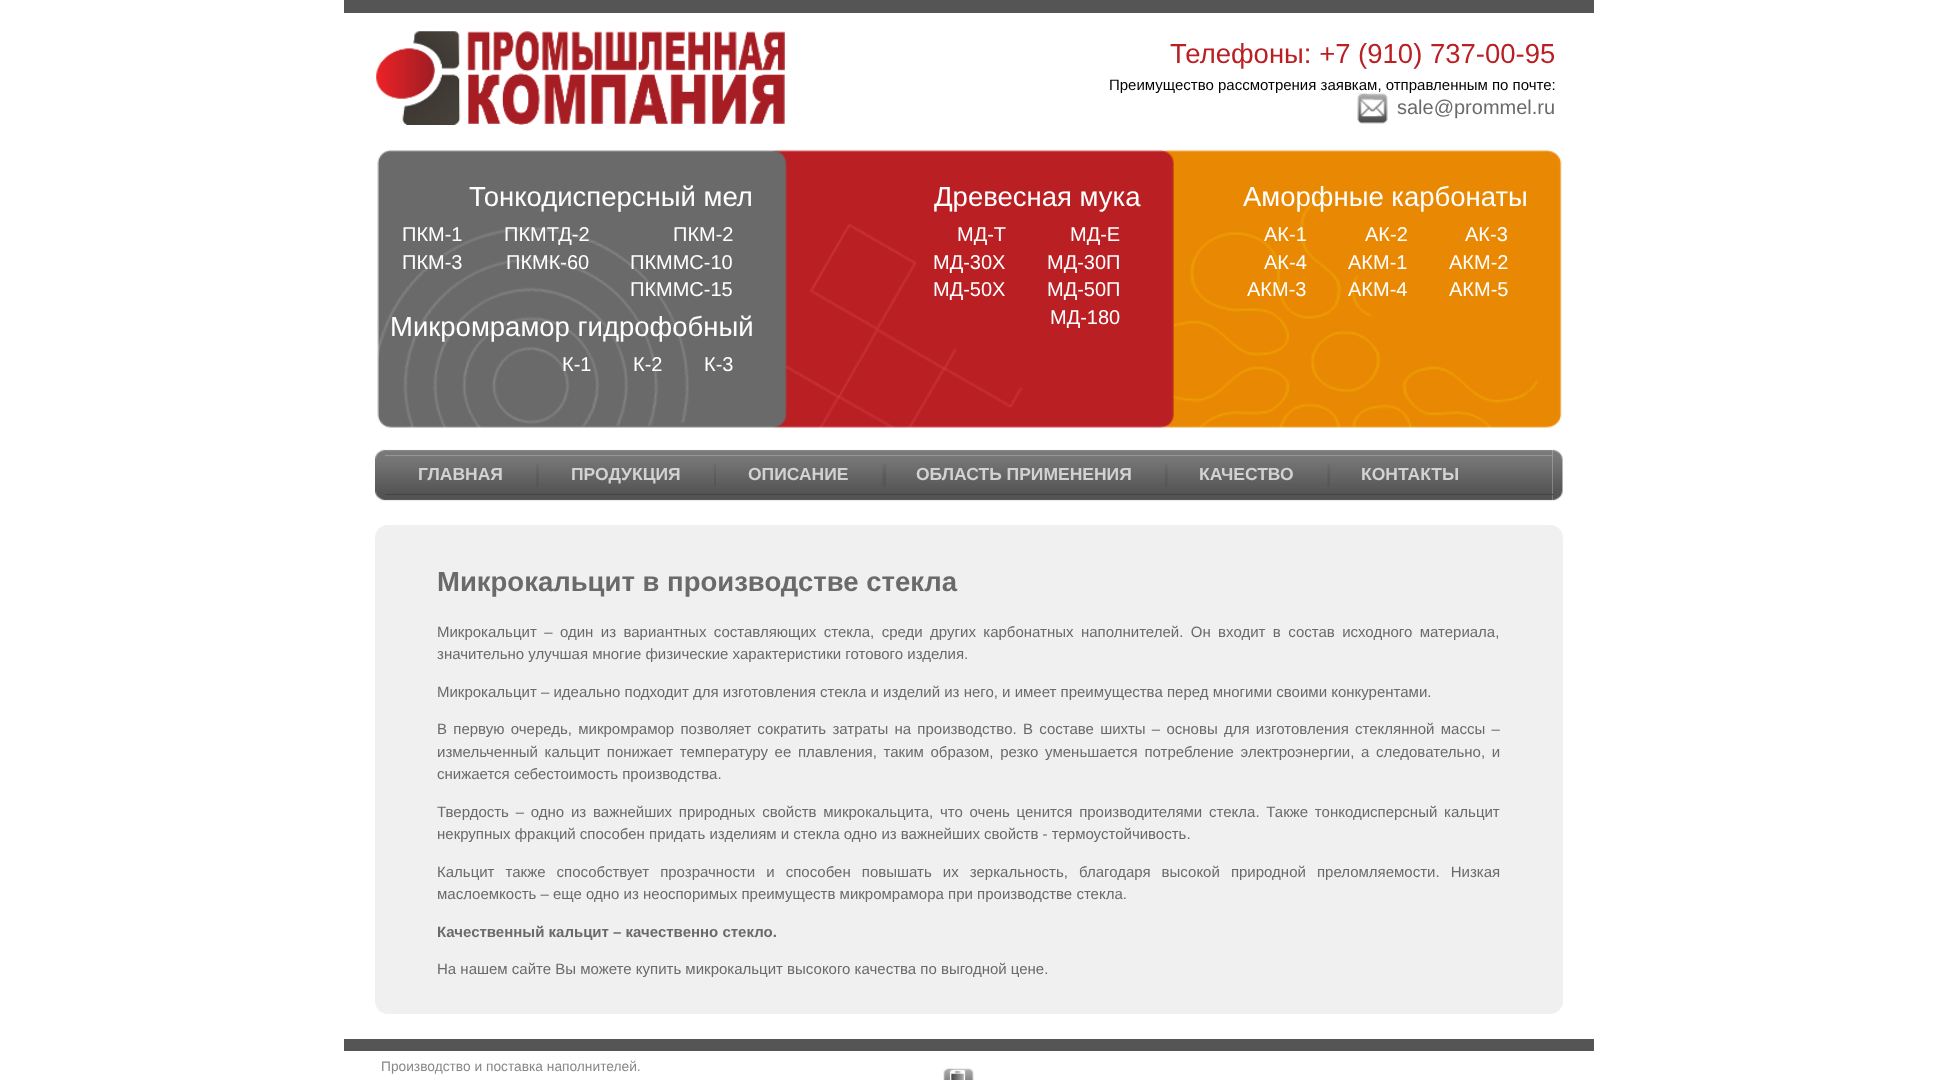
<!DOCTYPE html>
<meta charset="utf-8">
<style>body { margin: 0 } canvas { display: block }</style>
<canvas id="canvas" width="1936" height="1080"></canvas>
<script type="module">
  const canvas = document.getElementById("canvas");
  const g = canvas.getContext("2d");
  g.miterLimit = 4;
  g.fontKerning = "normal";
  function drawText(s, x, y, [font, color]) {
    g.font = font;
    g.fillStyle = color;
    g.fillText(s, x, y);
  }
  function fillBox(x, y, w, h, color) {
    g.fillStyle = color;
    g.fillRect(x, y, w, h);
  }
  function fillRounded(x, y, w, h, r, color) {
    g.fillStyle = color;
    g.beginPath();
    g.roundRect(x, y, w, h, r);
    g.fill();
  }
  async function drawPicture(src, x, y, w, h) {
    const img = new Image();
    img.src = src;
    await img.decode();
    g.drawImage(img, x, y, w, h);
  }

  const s1 = ["27.5px Liberation Sans", "#BA1F24"];
  const s2 = ["15px Liberation Sans", "#000000"];
  const s3 = ["20px Liberation Sans", "#6A6A6A"];
  const s4 = ["27.5px Liberation Sans", "#FFFFFF"];
  const s5 = ["20px Liberation Sans", "#FFFFFF"];
  const s6 = ["bold 17.5px Liberation Sans", "#D2D2D2"];
  const s7 = ["bold 27.5px Liberation Sans", "#6A6A6A"];
  const s8 = ["15px Liberation Sans", "#6A6A6A"];
  const s9 = ["bold 15px Liberation Sans", "#6A6A6A"];
  const s10 = ["13.75px Liberation Sans", "#888888"];

  fillBox(0, 0, 1936, 1080, "#FFFFFF");
  fillBox(344, 0, 1250, 13, "#555555");
  await drawPicture("pic1.png", 376, 31, 409, 94);
  drawText("Телефоны: +7 (910) 737-00-95", 1170, 63, s1);
  drawText("Преимущество рассмотрения заявкам, отправленным по почте:", 1109, 90, s2);
  await drawPicture("pic2.png", 1357, 93, 31, 31);
  drawText("sale@prommel.ru", 1397, 114, s3);
  await drawPicture("pic5.png", 1160, 149, 402, 279);
  await drawPicture("pic4.png", 771, 149, 403, 279);
  await drawPicture("pic3.png", 377, 150, 410, 278);
  drawText("Тонкодисперсный мел", 469, 206, s4);
  drawText("ПКМ-1", 402, 241, s5);
  drawText("ПКМТД-2", 504, 241, s5);
  drawText("ПКМ-2", 673, 241, s5);
  drawText("ПКМ-3", 402, 269, s5);
  drawText("ПКМК-60", 506, 269, s5);
  drawText("ПКММС-10", 630, 269, s5);
  drawText("ПКММС-15", 630, 296, s5);
  drawText("Микромрамор гидрофобный", 390, 336, s4);
  drawText("К-1", 562, 371, s5);
  drawText("К-2", 633, 371, s5);
  drawText("К-3", 704, 371, s5);
  drawText("Древесная мука", 934, 206, s4);
  drawText("МД-Т", 957, 241, s5);
  drawText("МД-Е", 1070, 241, s5);
  drawText("МД-30Х", 933, 269, s5);
  drawText("МД-30П", 1047, 269, s5);
  drawText("МД-50Х", 933, 296, s5);
  drawText("МД-50П", 1047, 296, s5);
  drawText("МД-180", 1050, 324, s5);
  drawText("Аморфные карбонаты", 1243, 206, s4);
  drawText("АК-1", 1264, 241, s5);
  drawText("АК-2", 1365, 241, s5);
  drawText("АК-3", 1465, 241, s5);
  drawText("АК-4", 1264, 269, s5);
  drawText("АКМ-1", 1348, 269, s5);
  drawText("АКМ-2", 1449, 269, s5);
  drawText("АКМ-3", 1247, 296, s5);
  drawText("АКМ-4", 1348, 296, s5);
  drawText("АКМ-5", 1449, 296, s5);
  await drawPicture("pic6.png", 375, 449, 10, 52);
  await drawPicture("pic13.png", 1552, 449, 11, 52);
  await drawPicture("pic7.png", 385, 449, 1168, 52);
  fillBox(385, 455, 1168, 1, "#959595");
  fillBox(385, 494, 1168, 1, "#424242");
  drawText("ГЛАВНАЯ", 418, 480, s6);
  await drawPicture("pic8.png", 536, 464, 3, 23);
  drawText("ПРОДУКЦИЯ", 571, 480, s6);
  await drawPicture("pic9.png", 714, 464, 2, 23);
  drawText("ОПИСАНИЕ", 748, 480, s6);
  await drawPicture("pic10.png", 882, 464, 4, 23);
  drawText("ОБЛАСТЬ ПРИМЕНЕНИЯ", 916, 480, s6);
  await drawPicture("pic11.png", 1165, 464, 3, 23);
  drawText("КАЧЕСТВО", 1199, 480, s6);
  await drawPicture("pic12.png", 1327, 464, 3, 23);
  drawText("КОНТАКТЫ", 1361, 480, s6);
  fillRounded(375, 525, 1188, 489, 13, "#F0F0F0");
  drawText("Микрокальцит в производстве стекла", 437, 591, s7);
  g.wordSpacing = "3.25px";
  drawText("Микрокальцит – один из вариантных составляющих стекла, среди других карбонатных наполнителей. Он входит в состав исходного материала,", 437, 637, s8);
  g.wordSpacing = "0px";
  drawText("значительно улучшая многие физические характеристики готового изделия.", 437, 659, s8);
  drawText("Микрокальцит – идеально подходит для изготовления стекла и изделий из него, и имеет преимущества перед многими своими конкурентами.", 437, 697, s8);
  g.wordSpacing = "2.1px";
  drawText("В первую очередь, микромрамор позволяет сократить затраты на производство. В составе шихты – основы для изготовления стеклянной массы –", 437, 734, s8);
  g.wordSpacing = "2.5px";
  drawText("измельченный кальцит понижает температуру ее плавления, таким образом, резко уменьшается потребление электроэнергии, а следовательно, и", 437, 757, s8);
  g.wordSpacing = "0px";
  drawText("снижается себестоимость производства.", 437, 779, s8);
  g.wordSpacing = "2.6px";
  drawText("Твердость – одно из важнейших природных свойств микрокальцита, что очень ценится производителями стекла. Также тонкодисперсный кальцит", 437, 817, s8);
  g.wordSpacing = "0px";
  drawText("некрупных фракций способен придать изделиям и стекла одно из важнейших свойств - термоустойчивость.", 437, 839, s8);
  g.wordSpacing = "6.9px";
  drawText("Кальцит также способствует прозрачности и способен повышать их зеркальность, благодаря высокой природной преломляемости. Низкая", 437, 877, s8);
  g.wordSpacing = "0px";
  drawText("маслоемкость – еще одно из неоспоримых преимуществ микромрамора при производстве стекла.", 437, 899, s8);
  drawText("Качественный кальцит – качественно стекло.", 437, 937, s9);
  drawText("На нашем сайте Вы можете купить микрокальцит высокого качества по выгодной цене.", 437, 974, s8);
  fillBox(344, 1039, 1250, 12, "#555555");
  drawText("Производство и поставка наполнителей.", 381, 1071, s10);
  await drawPicture("pic14.png", 943, 1068, 31, 12);
</script>
